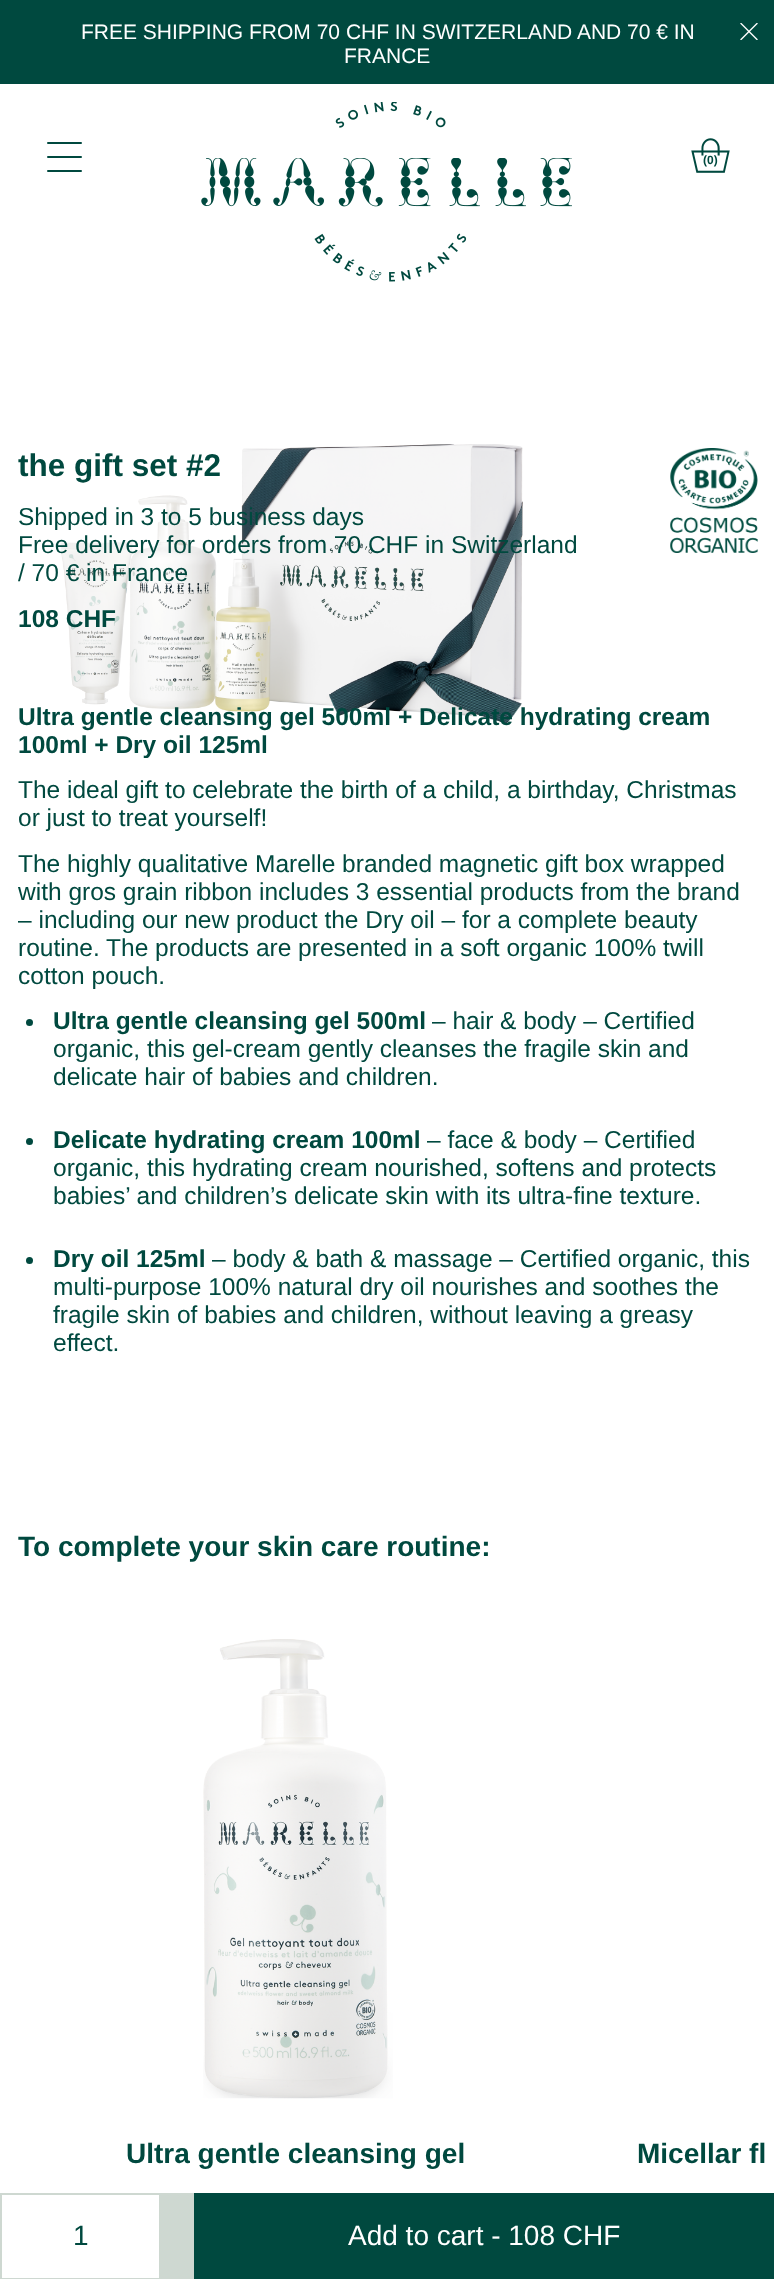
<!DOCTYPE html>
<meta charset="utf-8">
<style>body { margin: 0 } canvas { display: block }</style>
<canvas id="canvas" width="774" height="2279"></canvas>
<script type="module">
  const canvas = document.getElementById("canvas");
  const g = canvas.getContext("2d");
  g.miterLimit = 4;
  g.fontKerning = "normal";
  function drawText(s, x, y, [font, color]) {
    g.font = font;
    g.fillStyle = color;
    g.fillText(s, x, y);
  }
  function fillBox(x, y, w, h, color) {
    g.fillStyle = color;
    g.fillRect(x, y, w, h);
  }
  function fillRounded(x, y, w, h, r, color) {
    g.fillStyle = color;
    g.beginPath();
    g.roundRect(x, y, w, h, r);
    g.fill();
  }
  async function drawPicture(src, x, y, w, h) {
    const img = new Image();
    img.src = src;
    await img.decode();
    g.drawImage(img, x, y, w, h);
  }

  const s1 = ["21px Liberation Sans", "#FFFFFF"];
  const s2 = ["bold 12px Liberation Sans", "#00493F"];
  const s3 = ["bold 31.5px Liberation Sans", "#00493F"];
  const s4 = ["24.5px Liberation Sans", "#00493F"];
  const s5 = ["bold 24.5px Liberation Sans", "#00493F"];
  const s6 = ["28px Liberation Sans", "#00493F"];
  const s7 = ["28px Liberation Sans", "#FFFFFF"];
  const s8 = ["bold 28px Liberation Sans", "#00493F"];

  fillBox(0, 0, 774, 2279, "#FFFFFF");
  fillBox(0, 0, 774, 84, "#00493F");
  drawText("FREE SHIPPING FROM 70 CHF IN SWITZERLAND AND 70 € IN", 81, 39, s1);
  await drawPicture("pic1.png", 740, 23, 18, 17);
  drawText("FRANCE", 344, 63, s1);
  fillRounded(47, 142, 35, 2, 1, "#00493F");
  fillRounded(47, 156, 35, 2, 1, "#00493F");
  fillRounded(47, 170, 35, 2, 1, "#00493F");
  await drawPicture("pic2.png", 314, 102, 153, 180);
  await drawPicture("pic3.png", 201, 158, 371, 49);
  await drawPicture("pic4.png", 691, 138, 39, 35);
  drawText("(0)", 703, 164, s2);
  await drawPicture("pic5.png", 60, 444, 463, 280);
  drawText("the gift set #2", 18, 476, s3);
  drawText("Shipped in 3 to 5 business days", 18, 525, s4);
  drawText("Free delivery for orders from 70 CHF in Switzerland", 18, 553, s4);
  drawText("/ 70 € in France", 18, 581, s4);
  drawText("108 CHF", 18, 627, s5);
  g.strokeStyle = "#CED8D1";
  g.lineWidth = 2;
  g.strokeRect(1, 2194, 192, 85);
  drawText("1", 73, 2245, s6);
  fillBox(159, 2195, 33, 83, "#CED8D1");
  fillBox(194, 2193, 580, 86, "#00493F");
  drawText("Add to cart - 108 CHF", 348, 2245, s7);
  await drawPicture("pic6.png", 670, 448, 88, 105);
  drawText("Ultra gentle cleansing gel 500ml + Delicate hydrating cream", 18, 725, s5);
  drawText("100ml + Dry oil 125ml", 18, 753, s5);
  drawText("The ideal gift to celebrate the birth of a child, a birthday, Christmas", 18, 798, s4);
  drawText("or just to treat yourself!", 18, 826, s4);
  drawText("The highly qualitative Marelle branded magnetic gift box wrapped", 18, 872, s4);
  drawText("with gros grain ribbon includes 3 essential products from the brand", 18, 900, s4);
  drawText("– including our new product the Dry oil – for a complete beauty", 18, 928, s4);
  drawText("routine. The products are presented in a soft organic 100% twill", 18, 956, s4);
  drawText("cotton pouch.", 18, 984, s4);
  g.beginPath();
  g.arc(29.5, 1022.5, 3.5, 0, Math.PI * 2);
  g.fill();
  drawText("Ultra gentle cleansing gel 500ml", 53, 1029, s5);
  drawText("– hair & body – Certified", 432, 1029, s4);
  drawText("organic, this gel-cream gently cleanses the fragile skin and", 53, 1057, s4);
  drawText("delicate hair of babies and children.", 53, 1085, s4);
  g.beginPath();
  g.arc(29.5, 1141.5, 3.5, 0, Math.PI * 2);
  g.fill();
  drawText("Delicate hydrating cream 100ml", 53, 1148, s5);
  drawText("– face & body – Certified", 427, 1148, s4);
  drawText("organic, this hydrating cream nourished, softens and protects", 53, 1176, s4);
  drawText("babies’ and children’s delicate skin with its ultra-fine texture.", 53, 1204, s4);
  g.beginPath();
  g.arc(29.5, 1260.5, 3.5, 0, Math.PI * 2);
  g.fill();
  drawText("Dry oil 125ml", 53, 1267, s5);
  drawText("– body & bath & massage – Certified organic, this", 212, 1267, s4);
  drawText("multi-purpose 100% natural dry oil nourishes and soothes the", 53, 1295, s4);
  drawText("fragile skin of babies and children, without leaving a greasy", 53, 1323, s4);
  drawText("effect.", 53, 1351, s4);
  drawText("To complete your skin care routine:", 18, 1556, s8);
  await drawPicture("pic7.png", 203, 1639, 190, 460);
  drawText("Ultra gentle cleansing gel", 126, 2163, s8);
  drawText("Micellar fl", 637, 2163, s8);
</script>
